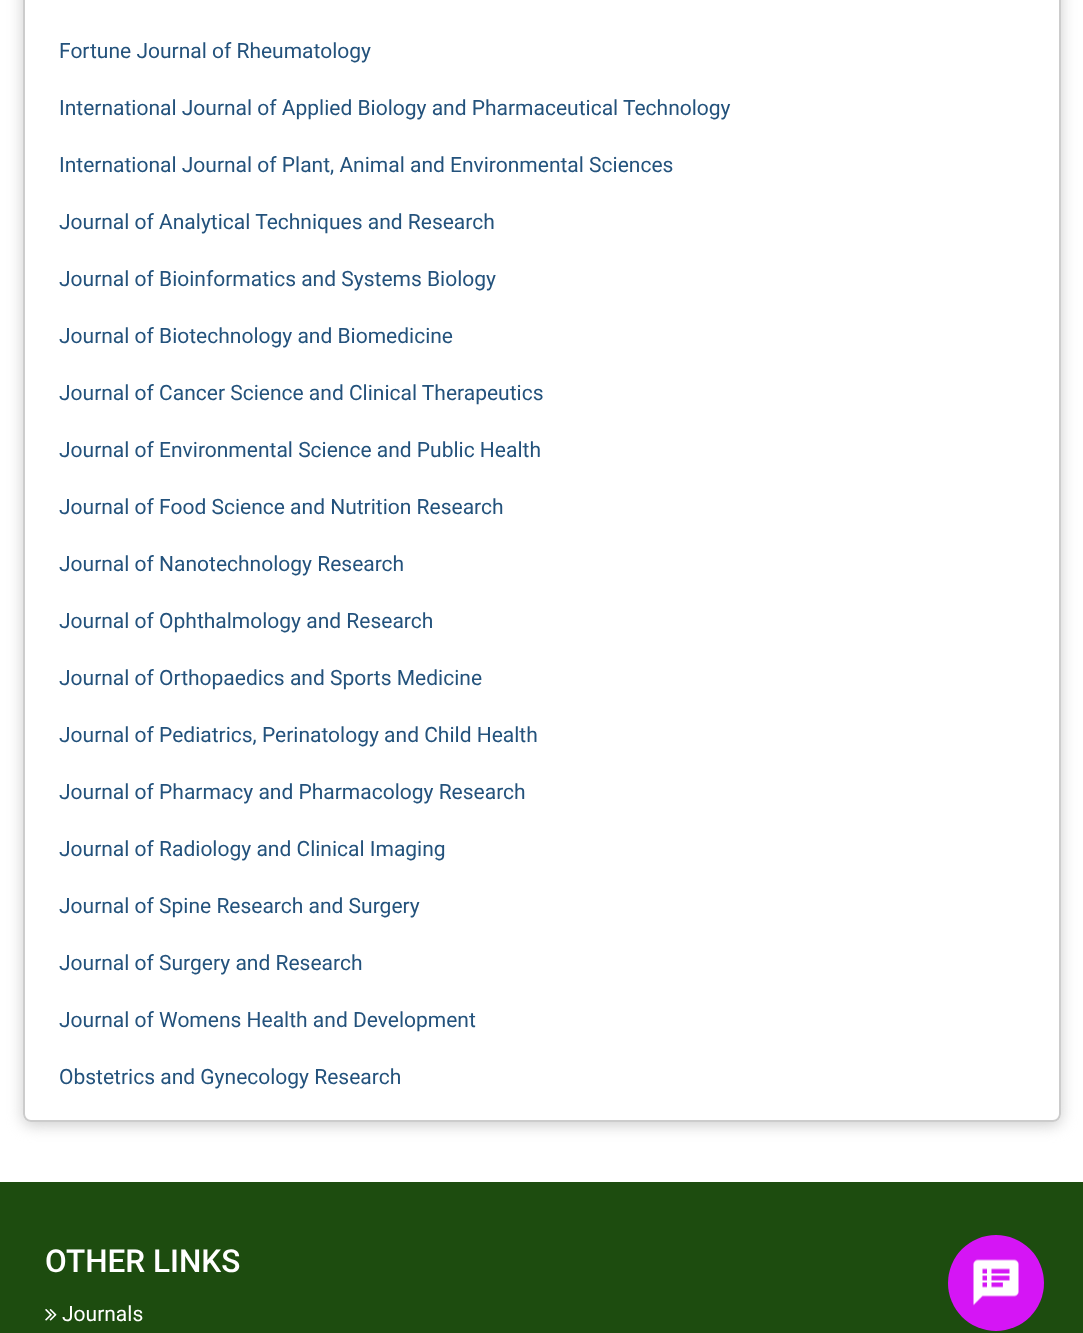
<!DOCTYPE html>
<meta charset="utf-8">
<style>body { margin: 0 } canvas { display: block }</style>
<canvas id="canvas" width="1083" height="1333"></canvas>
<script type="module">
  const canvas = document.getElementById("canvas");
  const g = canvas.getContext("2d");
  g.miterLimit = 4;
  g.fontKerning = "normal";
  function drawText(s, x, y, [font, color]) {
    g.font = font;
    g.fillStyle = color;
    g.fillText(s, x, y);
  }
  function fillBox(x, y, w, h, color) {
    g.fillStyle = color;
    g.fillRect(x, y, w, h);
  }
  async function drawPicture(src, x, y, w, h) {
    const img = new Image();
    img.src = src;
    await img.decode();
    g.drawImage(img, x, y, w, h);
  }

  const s1 = ["21px Roboto", "#23527C"];
  const s2 = ["500 31.5px Roboto", "#FFFFFF"];
  const s3 = ["21px Roboto", "#FFFFFF"];

  fillBox(0, 0, 1083, 1333, "#FFFFFF");
  g.save();
  g.beginPath();
  g.moveTo(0, 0);
  g.lineTo(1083, 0);
  g.lineTo(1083, 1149);
  g.lineTo(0, 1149);
  g.closePath();
  g.moveTo(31, -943);
  g.lineTo(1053, -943);
  g.bezierCurveTo(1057.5, -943, 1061, -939.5, 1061, -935);
  g.lineTo(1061, 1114);
  g.bezierCurveTo(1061, 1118.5, 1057.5, 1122, 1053, 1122);
  g.lineTo(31, 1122);
  g.bezierCurveTo(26.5, 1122, 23, 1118.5, 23, 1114);
  g.lineTo(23, -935);
  g.bezierCurveTo(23, -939.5, 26.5, -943, 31, -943);
  g.closePath();
  g.clip("evenodd");
  g.fillStyle = "#CCCCCC";
  g.filter = "blur(7.5px)";
  g.beginPath();
  g.roundRect(23, -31, 1038, 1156, 8);
  g.fill();
  g.filter = "none";
  g.restore();
  g.beginPath();
  g.roundRect(24, -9, 1036, 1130, 7);
  g.strokeStyle = "#CCCCCC";
  g.lineWidth = 2;
  g.stroke();
  drawText("Fortune Journal of Rheumatology", 59, 58, s1);
  drawText("International Journal of Applied Biology and Pharmaceutical Technology", 59, 115, s1);
  drawText("International Journal of Plant, Animal and Environmental Sciences", 59, 172, s1);
  drawText("Journal of Analytical Techniques and Research", 59, 229, s1);
  drawText("Journal of Bioinformatics and Systems Biology", 59, 286, s1);
  drawText("Journal of Biotechnology and Biomedicine", 59, 343, s1);
  drawText("Journal of Cancer Science and Clinical Therapeutics", 59, 400, s1);
  drawText("Journal of Environmental Science and Public Health", 59, 457, s1);
  drawText("Journal of Food Science and Nutrition Research", 59, 514, s1);
  drawText("Journal of Nanotechnology Research", 59, 571, s1);
  drawText("Journal of Ophthalmology and Research", 59, 628, s1);
  drawText("Journal of Orthopaedics and Sports Medicine", 59, 685, s1);
  drawText("Journal of Pediatrics, Perinatology and Child Health", 59, 742, s1);
  drawText("Journal of Pharmacy and Pharmacology Research", 59, 799, s1);
  drawText("Journal of Radiology and Clinical Imaging", 59, 856, s1);
  drawText("Journal of Spine Research and Surgery", 59, 913, s1);
  drawText("Journal of Surgery and Research", 59, 970, s1);
  drawText("Journal of Womens Health and Development", 59, 1027, s1);
  drawText("Obstetrics and Gynecology Research", 59, 1084, s1);
  fillBox(0, 1182, 1083, 151, "#1D4C0F");
  drawText("OTHER LINKS", 45, 1272, s2);
  await drawPicture("pic1.png", 45, 1309, 12, 12);
  drawText("Journals", 62, 1321, s3);
  g.fillStyle = "#D515F5";
  g.beginPath();
  g.arc(996, 1283, 48, 0, Math.PI * 2);
  g.fill();
  await drawPicture("pic2.png", 973, 1259, 46, 47);
</script>
